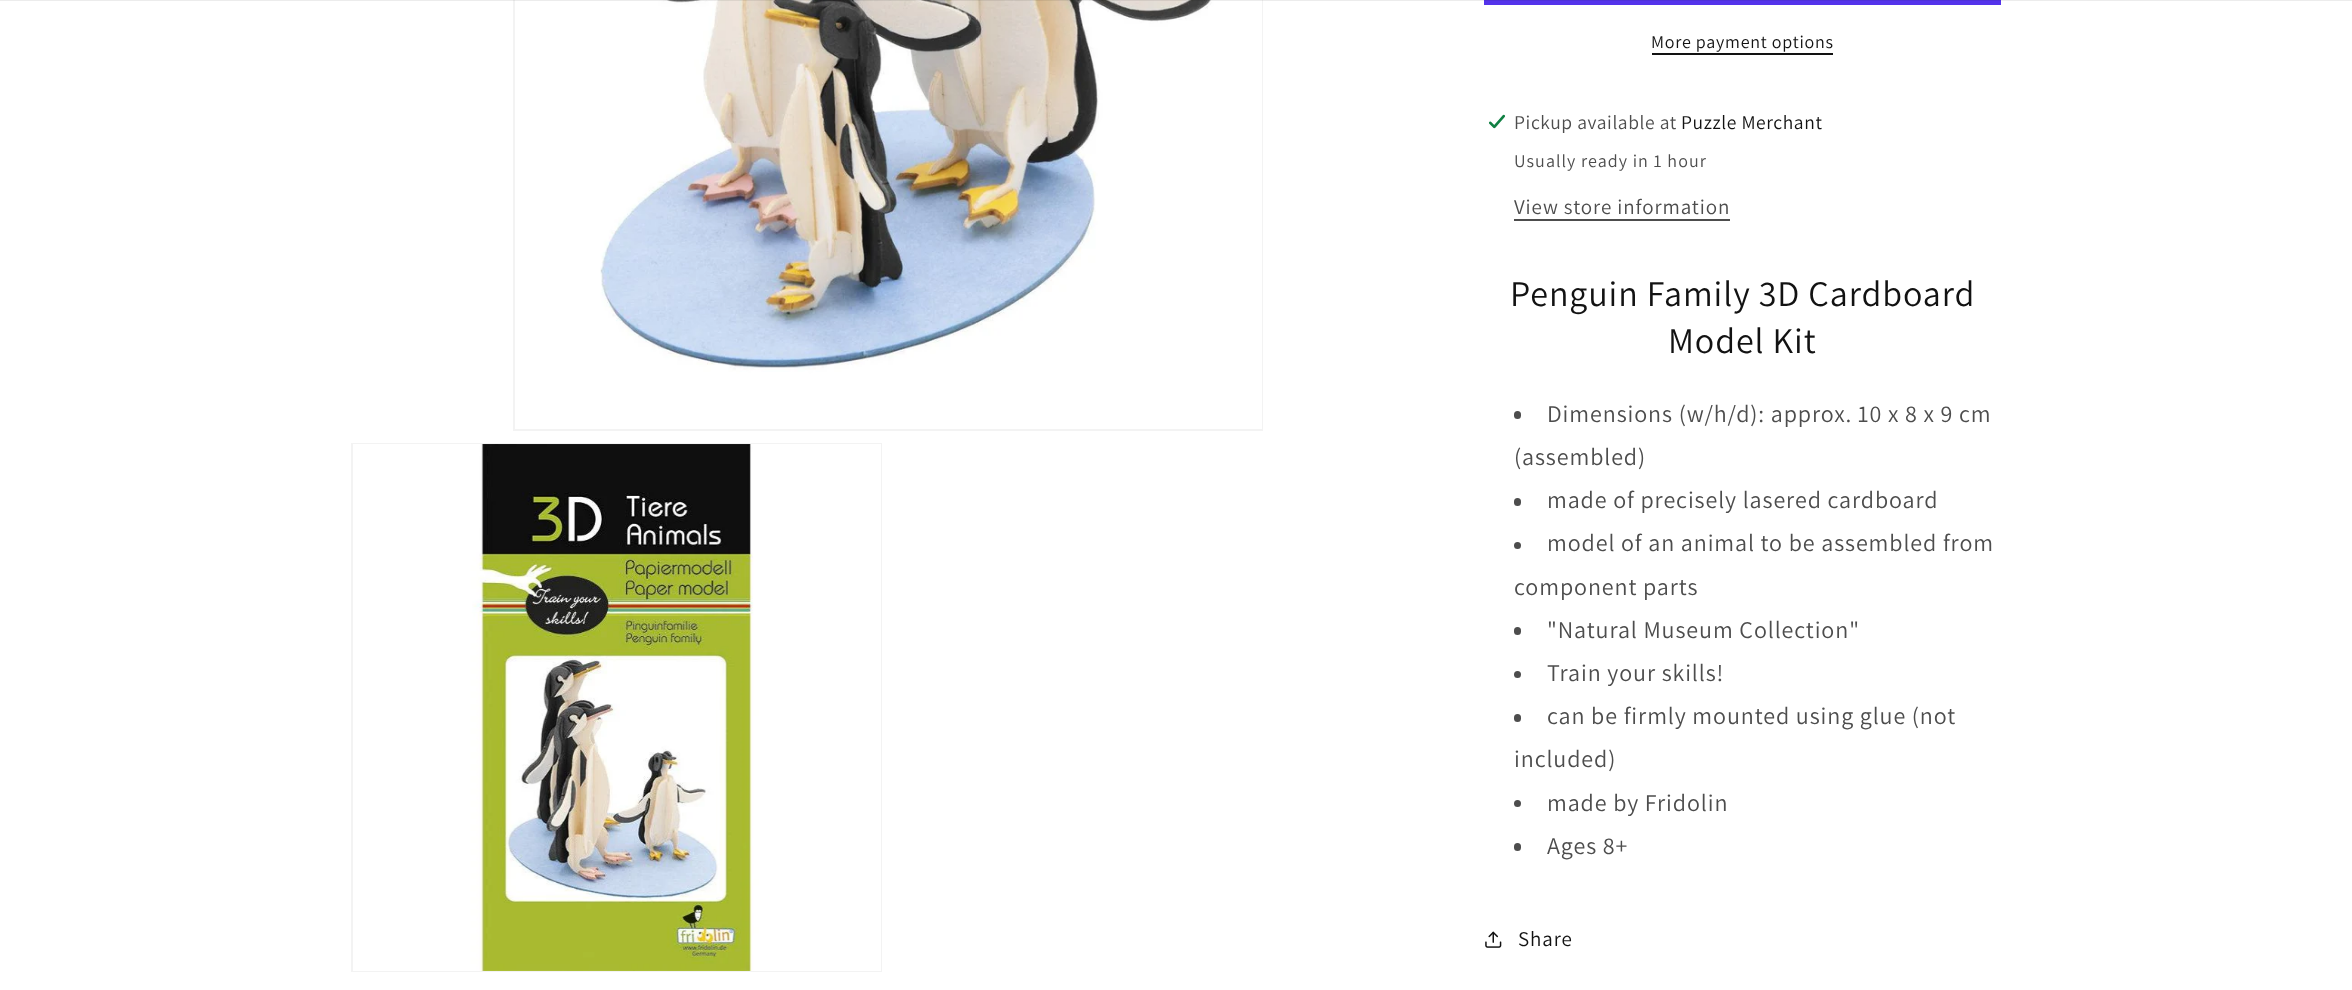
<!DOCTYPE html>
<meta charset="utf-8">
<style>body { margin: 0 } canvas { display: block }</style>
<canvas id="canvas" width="2352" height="990"></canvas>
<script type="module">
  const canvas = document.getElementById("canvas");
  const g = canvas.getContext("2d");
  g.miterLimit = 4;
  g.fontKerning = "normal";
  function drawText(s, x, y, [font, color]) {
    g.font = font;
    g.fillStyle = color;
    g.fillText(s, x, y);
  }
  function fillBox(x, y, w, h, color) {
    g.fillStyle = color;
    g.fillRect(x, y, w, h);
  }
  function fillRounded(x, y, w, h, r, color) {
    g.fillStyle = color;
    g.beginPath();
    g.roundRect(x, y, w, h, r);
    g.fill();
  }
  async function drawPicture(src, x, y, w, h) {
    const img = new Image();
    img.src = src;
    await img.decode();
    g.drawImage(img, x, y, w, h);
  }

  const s1 = ["18px Assistant", "#121212"];
  const s2 = ["19.5px Assistant", "#4D4D4D"];
  const s3 = ["19.5px Assistant", "#121212"];
  const s4 = ["18px Assistant", "#4D4D4D"];
  const s5 = ["21px Assistant", "#4D4D4D"];
  const s6 = ["36px Assistant", "#121212"];
  const s7 = ["24px Assistant", "#4D4D4D"];
  const s8 = ["21px Assistant", "#121212"];

  fillBox(0, 0, 2352, 990, "#FFFFFF");
  g.strokeStyle = "#F3F3F3";
  g.lineWidth = 2;
  g.strokeRect(514, -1, 748, 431);
  await drawPicture("pic1.png", 600, 0, 662, 429);
  fillBox(1484, 0, 517, 5, "#5433EB");
  fillBox(0, 0, 2352, 1, "rgba(18, 18, 18, 0.08)");
  g.strokeRect(352, 444, 529, 527);
  await drawPicture("pic2.png", 353, 444, 528, 527);
  g.letterSpacing = "0.75px";
  drawText("More payment options", 1651, 48, s1);
  fillBox(1652, 53, 181, 2, "#121212");
  await drawPicture("pic3.png", 1488, 114, 18, 15);
  g.letterSpacing = "0.6px";
  drawText("Pickup available at", 1514, 129, s2);
  drawText("Puzzle Merchant", 1681, 129, s3);
  g.letterSpacing = "1.05px";
  drawText("Usually ready in 1 hour", 1514, 167, s4);
  g.letterSpacing = "0.9px";
  drawText("View store information", 1514, 214, s5);
  fillBox(1514, 219, 216, 2, "#4D4D4D");
  drawText("Penguin Family 3D Cardboard", 1510, 306, s6);
  drawText("Model Kit", 1668, 353, s6);
  fillRounded(1514, 411, 7, 8, 3.5, "#4D4D4D");
  drawText("Dimensions (w/h/d): approx. 10 x 8 x 9 cm", 1547, 422, s7);
  drawText("(assembled)", 1514, 465, s7);
  fillRounded(1514, 498, 7, 8, 3.5, "#4D4D4D");
  drawText("made of precisely lasered cardboard", 1547, 508, s7);
  g.beginPath();
  g.arc(1517.5, 545.5, 3.5, 0, Math.PI * 2);
  g.fill();
  drawText("model of an animal to be assembled from", 1547, 551, s7);
  drawText("component parts", 1514, 595, s7);
  fillRounded(1514, 627, 7, 8, 3.5, "#4D4D4D");
  drawText("\"Natural Museum Collection\"", 1547, 638, s7);
  g.beginPath();
  g.arc(1517.5, 674.5, 3.5, 0, Math.PI * 2);
  g.fill();
  drawText("Train your skills!", 1547, 681, s7);
  fillRounded(1514, 714, 7, 8, 3.5, "#4D4D4D");
  drawText("can be firmly mounted using glue (not", 1547, 724, s7);
  drawText("included)", 1514, 767, s7);
  g.beginPath();
  g.arc(1517.5, 803.5, 3.5, 0, Math.PI * 2);
  g.fill();
  drawText("made by Fridolin", 1547, 811, s7);
  fillRounded(1514, 843, 7, 8, 3.5, "#4D4D4D");
  drawText("Ages 8+", 1547, 854, s7);
  await drawPicture("pic4.png", 1485, 931, 17, 17);
  drawText("Share", 1518, 946, s8);
</script>
